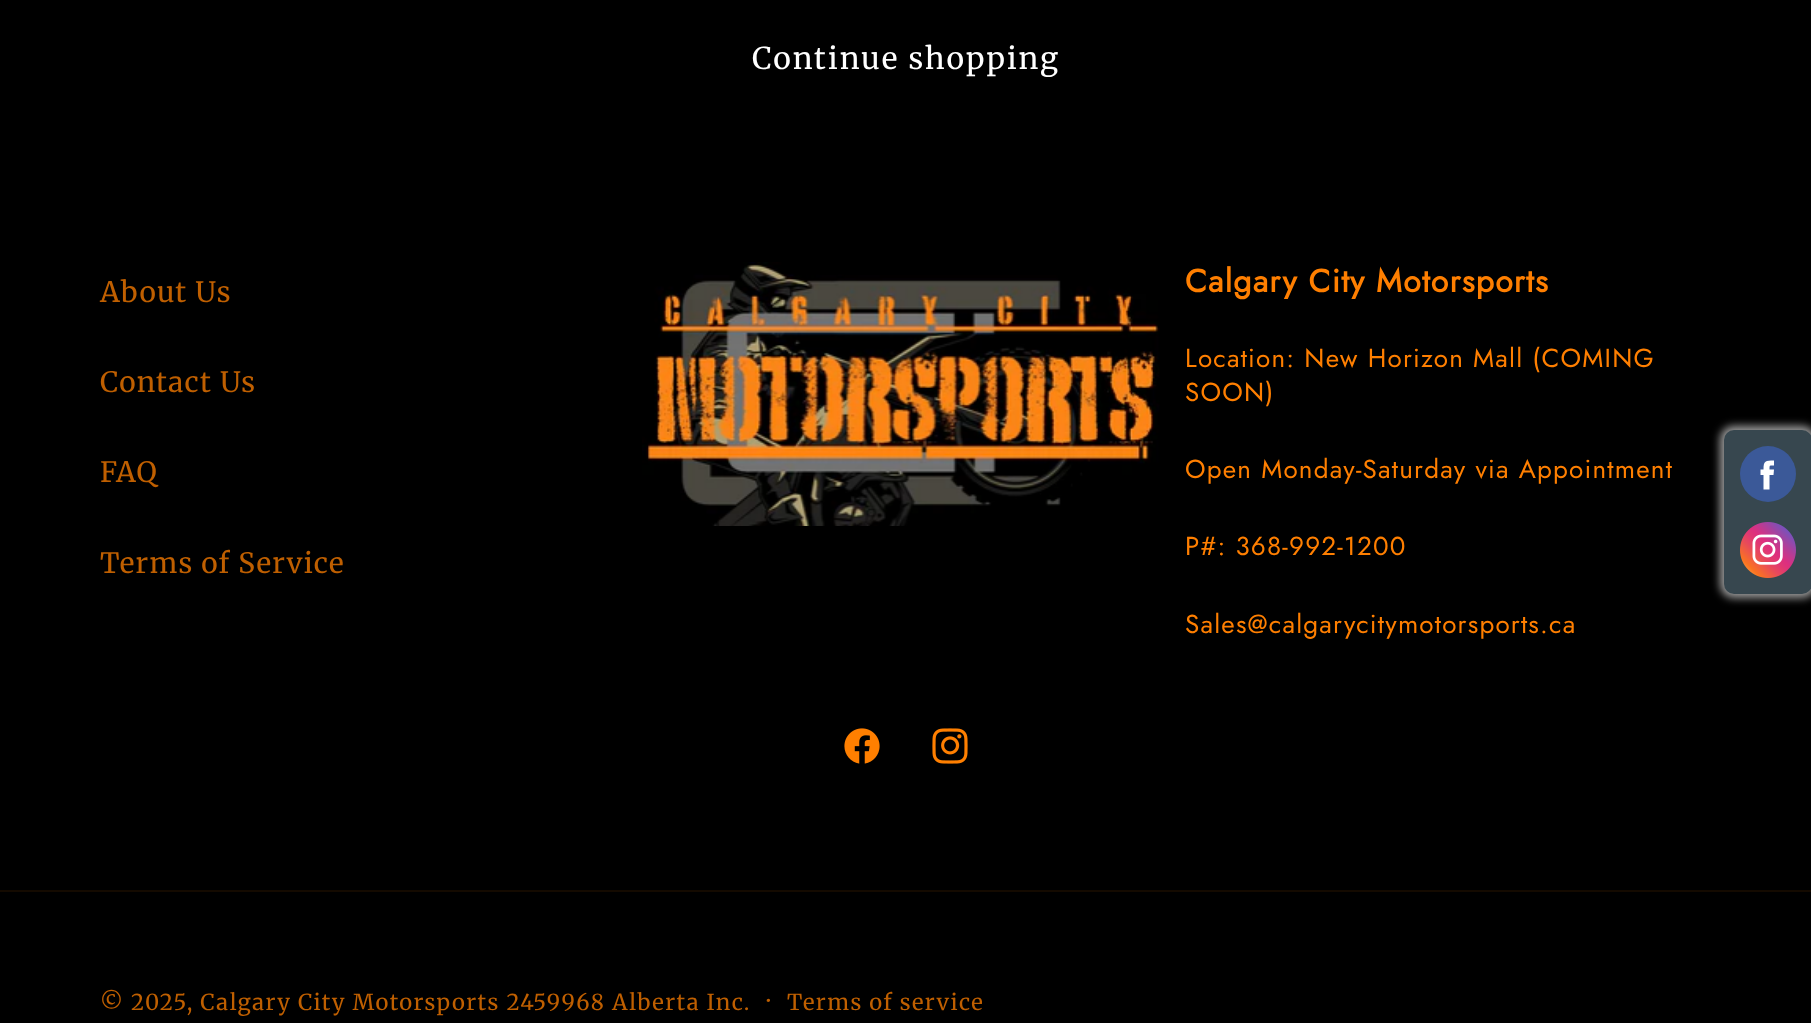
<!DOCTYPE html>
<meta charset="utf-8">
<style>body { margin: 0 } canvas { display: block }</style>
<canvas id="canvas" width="1811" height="1023"></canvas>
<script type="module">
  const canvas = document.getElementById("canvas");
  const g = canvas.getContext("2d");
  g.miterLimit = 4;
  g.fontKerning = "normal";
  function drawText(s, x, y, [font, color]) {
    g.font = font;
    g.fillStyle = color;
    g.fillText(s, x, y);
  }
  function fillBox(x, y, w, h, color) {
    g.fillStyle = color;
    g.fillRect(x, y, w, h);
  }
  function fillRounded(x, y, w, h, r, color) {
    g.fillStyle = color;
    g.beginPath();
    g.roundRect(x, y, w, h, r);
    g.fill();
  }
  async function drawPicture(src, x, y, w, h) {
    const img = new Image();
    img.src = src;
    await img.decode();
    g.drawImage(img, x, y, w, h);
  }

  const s1 = ["30px Merriweather", "#FFFFFF"];
  const s2 = ["28px Merriweather", "#BF5F00"];
  const s3 = ["bold 32px Jost", "#FF7F00"];
  const s4 = ["26px Jost", "#FF7F00"];
  const s5 = ["22px Merriweather", "#BF5F00"];
  const s6 = ["24px Merriweather", "#BF5F00"];

  fillBox(0, 0, 1811, 1023, "#000000");
  g.letterSpacing = "2px";
  drawText("Continue shopping", 752, 69, s1);
  g.letterSpacing = "1.2px";
  drawText("About Us", 100, 302, s2);
  drawText("Contact Us", 100, 392, s2);
  drawText("FAQ", 100, 482, s2);
  drawText("Terms of Service", 100, 573, s2);
  await drawPicture("pic1.png", 642, 262, 518, 264);
  drawText("Calgary City Motorsports", 1185, 292, s3);
  drawText("Location: New Horizon Mall (COMING", 1185, 367, s4);
  drawText("SOON)", 1185, 401, s4);
  drawText("Open Monday-Saturday via Appointment", 1185, 478, s4);
  drawText("P#: 368-992-1200", 1185, 555, s4);
  drawText("Sales@calgarycitymotorsports.ca", 1185, 633, s4);
  await drawPicture("pic2.png", 844, 728, 36, 36);
  await drawPicture("pic3.png", 932, 728, 36, 36);
  fillBox(0, 890, 1811, 2, "#140A00");
  g.letterSpacing = "1.4px";
  drawText("© 2025, Calgary City Motorsports 2459968 Alberta Inc.", 100, 1010, s5);
  drawText("·", 767, 1010, s6);
  drawText("Terms of service", 787, 1010, s5);
  g.fillStyle = "#9E9E9E";
  g.filter = "blur(4px)";
  g.beginPath();
  g.roundRect(1720, 426, 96, 172, 14);
  g.fill();
  g.filter = "none";
  fillRounded(1724, 430, 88, 164, 10, "#37474F");
  g.fillStyle = "#3B5998";
  g.beginPath();
  g.arc(1768, 474, 28, 0, Math.PI * 2);
  g.fill();
  g.fillStyle = "#FFFFFF";
  g.beginPath();
  g.moveTo(1773.5, 475);
  g.lineTo(1769.5, 475);
  g.lineTo(1769.5, 489.5);
  g.lineTo(1763.5, 489.5);
  g.lineTo(1763.5, 475);
  g.lineTo(1760.5, 475);
  g.lineTo(1760.5, 469.5);
  g.lineTo(1763.5, 469.5);
  g.bezierCurveTo(1763.5, 460.5, 1765.5, 460.5, 1774, 460.5);
  g.lineTo(1774, 465.5);
  g.bezierCurveTo(1769.5, 465.5, 1769.5, 464.5, 1769.5, 469.5);
  g.lineTo(1774, 469.5);
  g.closePath();
  g.fill();
  await drawPicture("pic4.png", 1740, 522, 56, 56);
</script>
